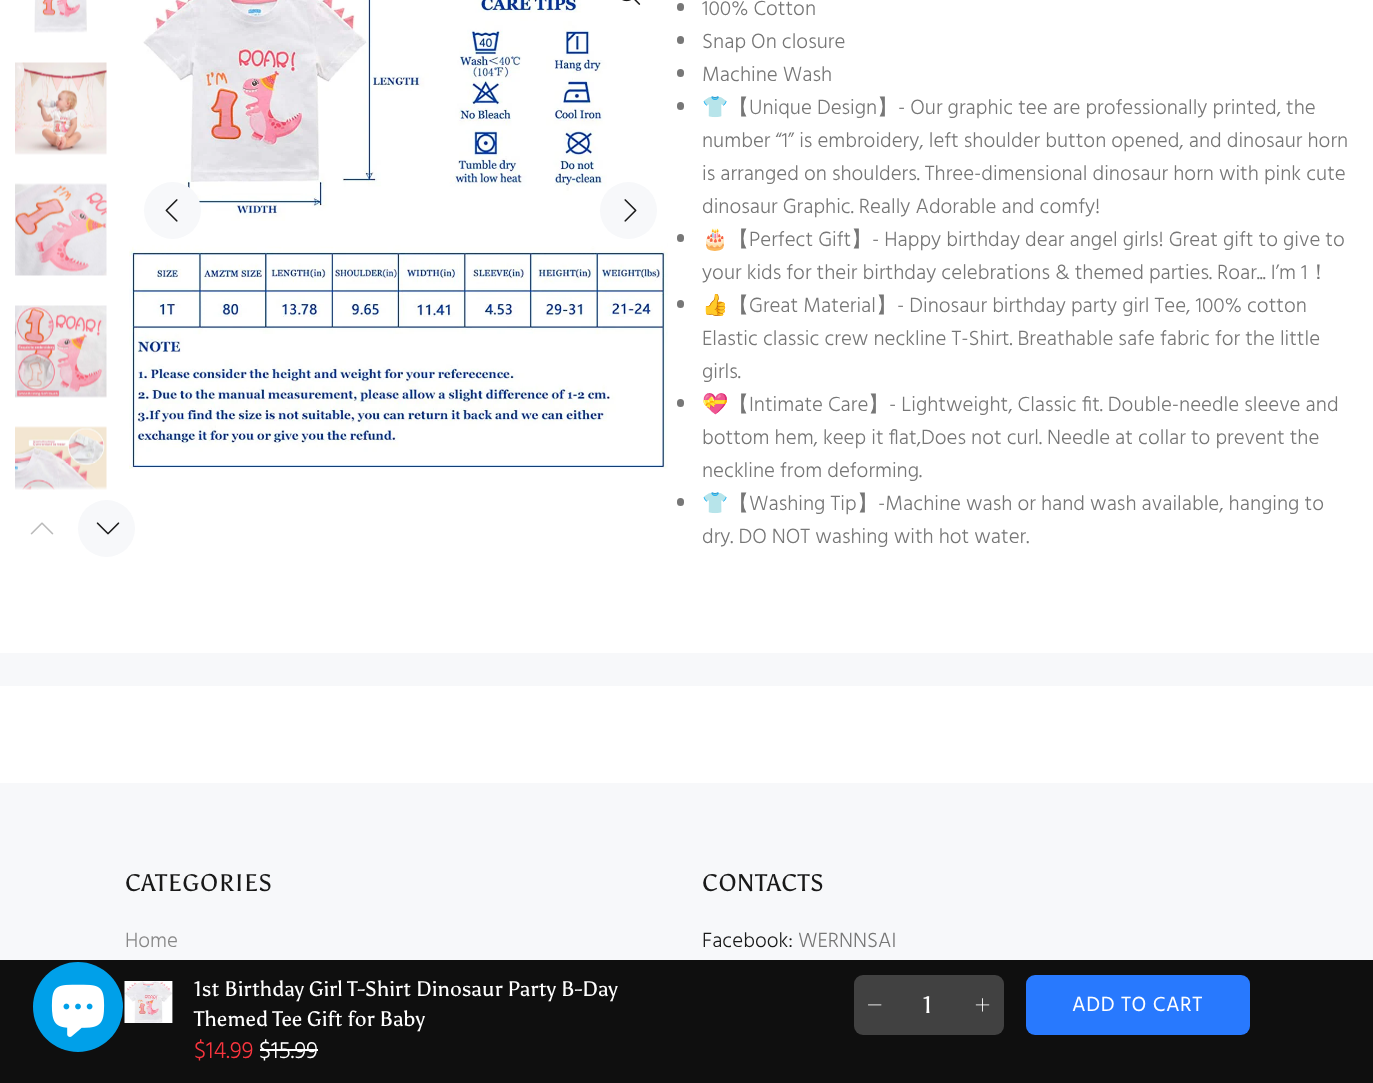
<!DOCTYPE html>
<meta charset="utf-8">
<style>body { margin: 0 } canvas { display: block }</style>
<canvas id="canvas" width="1373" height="1083"></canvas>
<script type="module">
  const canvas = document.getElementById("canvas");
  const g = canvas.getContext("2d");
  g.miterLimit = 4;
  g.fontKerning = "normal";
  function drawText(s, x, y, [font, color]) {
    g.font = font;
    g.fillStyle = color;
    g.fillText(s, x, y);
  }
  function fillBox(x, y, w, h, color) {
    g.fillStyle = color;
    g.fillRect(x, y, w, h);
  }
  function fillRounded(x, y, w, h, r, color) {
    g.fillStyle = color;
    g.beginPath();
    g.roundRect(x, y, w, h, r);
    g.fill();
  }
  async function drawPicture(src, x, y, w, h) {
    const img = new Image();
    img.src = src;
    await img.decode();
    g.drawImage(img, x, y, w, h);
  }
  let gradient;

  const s1 = ["300 21px Hind", "#777777"];
  const s2 = ["21px Noto Color Emoji", "#777777"];
  const s3 = ["500 21px WenQuanYi Zen Hei", "#777777"];
  const s4 = ["21px Asul", "#FFFFFF"];
  const s5 = ["300 24px Hind", "#F8353E"];
  const s6 = ["300 24px Hind", "#FFFFFF"];
  const s7 = ["24px Asul", "#FFFFFF"];
  const s8 = ["21px Hind", "#FFFFFF"];
  const s9 = ["24px Asul", "#191919"];
  const s10 = ["300 21px Hind", "#888888"];
  const s11 = ["300 21px Hind", "#191919"];

  fillBox(0, 0, 1373, 1083, "#FFFFFF");
  await drawPicture("pic1.png", 34, 0, 53, 33);
  await drawPicture("pic2.png", 15, 62, 92, 93);
  await drawPicture("pic3.png", 15, 183, 92, 93);
  await drawPicture("pic4.png", 15, 305, 92, 93);
  await drawPicture("pic5.png", 15, 426, 92, 64);
  gradient = g.createLinearGradient(62, 486, 62, 507);
  gradient.addColorStop(0, "rgba(255, 255, 255, 0)");
  gradient.addColorStop(0.2, "#FFFFFF");
  g.fillStyle = gradient;
  g.fillRect(15, 486, 92, 4);
  await drawPicture("pic6.png", 30, 522, 24, 13);
  g.fillStyle = "#F7F8FA";
  g.beginPath();
  g.arc(106.5, 528.5, 28.5, 0, Math.PI * 2);
  g.fill();
  await drawPicture("pic7.png", 96, 522, 24, 13);
  await drawPicture("pic8.png", 129, 0, 539, 469);
  await drawPicture("pic9.png", 622, 0, 19, 5);
  g.beginPath();
  g.arc(172.5, 210.5, 28.5, 0, Math.PI * 2);
  g.fill();
  await drawPicture("pic10.png", 165, 199, 13, 23);
  g.beginPath();
  g.arc(628.5, 210.5, 28.5, 0, Math.PI * 2);
  g.fill();
  await drawPicture("pic11.png", 624, 199, 13, 23);
  fillRounded(677, 3, 7, 8, 3.5, "#777777");
  drawText("100% Cotton", 702, 15, s1);
  fillRounded(677, 36, 7, 8, 3.5, "#777777");
  drawText("Snap On closure", 702, 48, s1);
  fillRounded(677, 69, 7, 8, 3.5, "#777777");
  drawText("Machine Wash", 702, 81, s1);
  fillRounded(677, 102, 7, 8, 3.5, "#777777");
  drawText("👕", 702, 114, s2);
  drawText("【", 728, 114, s3);
  drawText("Unique Design", 749, 114, s1);
  drawText("】", 877, 114, s3);
  drawText("- Our graphic tee are professionally printed, the", 898, 114, s1);
  drawText("number “1” is embroidery, left shoulder button opened, and dinosaur horn", 702, 147, s1);
  drawText("is arranged on shoulders. Three-dimensional dinosaur horn with pink cute", 702, 180, s1);
  drawText("dinosaur Graphic. Really Adorable and comfy!", 702, 213, s1);
  fillRounded(677, 234, 7, 8, 3.5, "#777777");
  drawText("🎂", 702, 246, s2);
  drawText("【", 728, 246, s3);
  drawText("Perfect Gift", 749, 246, s1);
  drawText("】", 851, 246, s3);
  drawText("- Happy birthday dear angel girls! Great gift to give to", 872, 246, s1);
  drawText("your kids for their birthday celebrations & themed parties. Roar... I’m 1", 702, 279, s1);
  drawText("！", 1308, 279, s3);
  fillRounded(677, 300, 7, 8, 3.5, "#777777");
  drawText("👍", 702, 312, s2);
  drawText("【", 728, 312, s3);
  drawText("Great Material", 749, 312, s1);
  drawText("】", 876, 312, s3);
  drawText("- Dinosaur birthday party girl Tee, 100% cotton", 897, 312, s1);
  drawText("Elastic classic crew neckline T-Shirt. Breathable safe fabric for the little", 702, 345, s1);
  drawText("girls.", 702, 378, s1);
  fillRounded(677, 399, 7, 8, 3.5, "#777777");
  drawText("💝", 702, 411, s2);
  drawText("【", 728, 411, s3);
  drawText("Intimate Care", 749, 411, s1);
  drawText("】", 868, 411, s3);
  drawText("- Lightweight, Classic fit. Double-needle sleeve and", 889, 411, s1);
  drawText("bottom hem, keep it flat,Does not curl. Needle at collar to prevent the", 702, 444, s1);
  drawText("neckline from deforming.", 702, 477, s1);
  fillRounded(677, 498, 7, 8, 3.5, "#777777");
  drawText("👕", 702, 510, s2);
  drawText("【", 728, 510, s3);
  drawText("Washing Tip", 749, 510, s1);
  drawText("】", 857, 510, s3);
  drawText("-Machine wash or hand wash available, hanging to", 878, 510, s1);
  drawText("dry. DO NOT washing with hot water.", 702, 543, s1);
  fillBox(0, 653, 1373, 33, "#F7F8FA");
  fillBox(0, 960, 1373, 123, "#0F0F0F");
  await drawPicture("pic12.png", 124, 981, 49, 42);
  drawText("1st Birthday Girl T-Shirt Dinosaur Party B-Day", 194, 996, s4);
  drawText("Themed Tee Gift for Baby", 194, 1026, s4);
  drawText("$14.99", 194, 1058, s5);
  drawText("$15.99", 259, 1058, s6);
  fillBox(260, 1049, 58, 2, "#FFFFFF");
  fillRounded(854, 975, 150, 60, 9, "#414141");
  await drawPicture("pic13.png", 868, 1004, 14, 2);
  drawText("1", 923, 1013, s7);
  await drawPicture("pic14.png", 975, 998, 15, 14);
  fillRounded(1026, 975, 224, 60, 9, "#2879FE");
  g.letterSpacing = "0.6px";
  drawText("ADD TO CART", 1072, 1011, s8);
  fillBox(0, 783, 1373, 177, "#F7F8FA");
  g.letterSpacing = "0.75px";
  drawText("CATEGORIES", 125, 891, s9);
  g.letterSpacing = "0px";
  drawText("Home", 125, 947, s10);
  g.letterSpacing = "0.75px";
  drawText("CONTACTS", 702, 891, s9);
  g.letterSpacing = "0px";
  drawText("Facebook:", 702, 947, s11);
  drawText("WERNNSAI", 798, 947, s1);
  g.fillStyle = "#00A0E9";
  g.beginPath();
  g.arc(78, 1007, 45, 0, Math.PI * 2);
  g.fill();
  await drawPicture("pic15.png", 51, 984, 54, 53);
</script>
